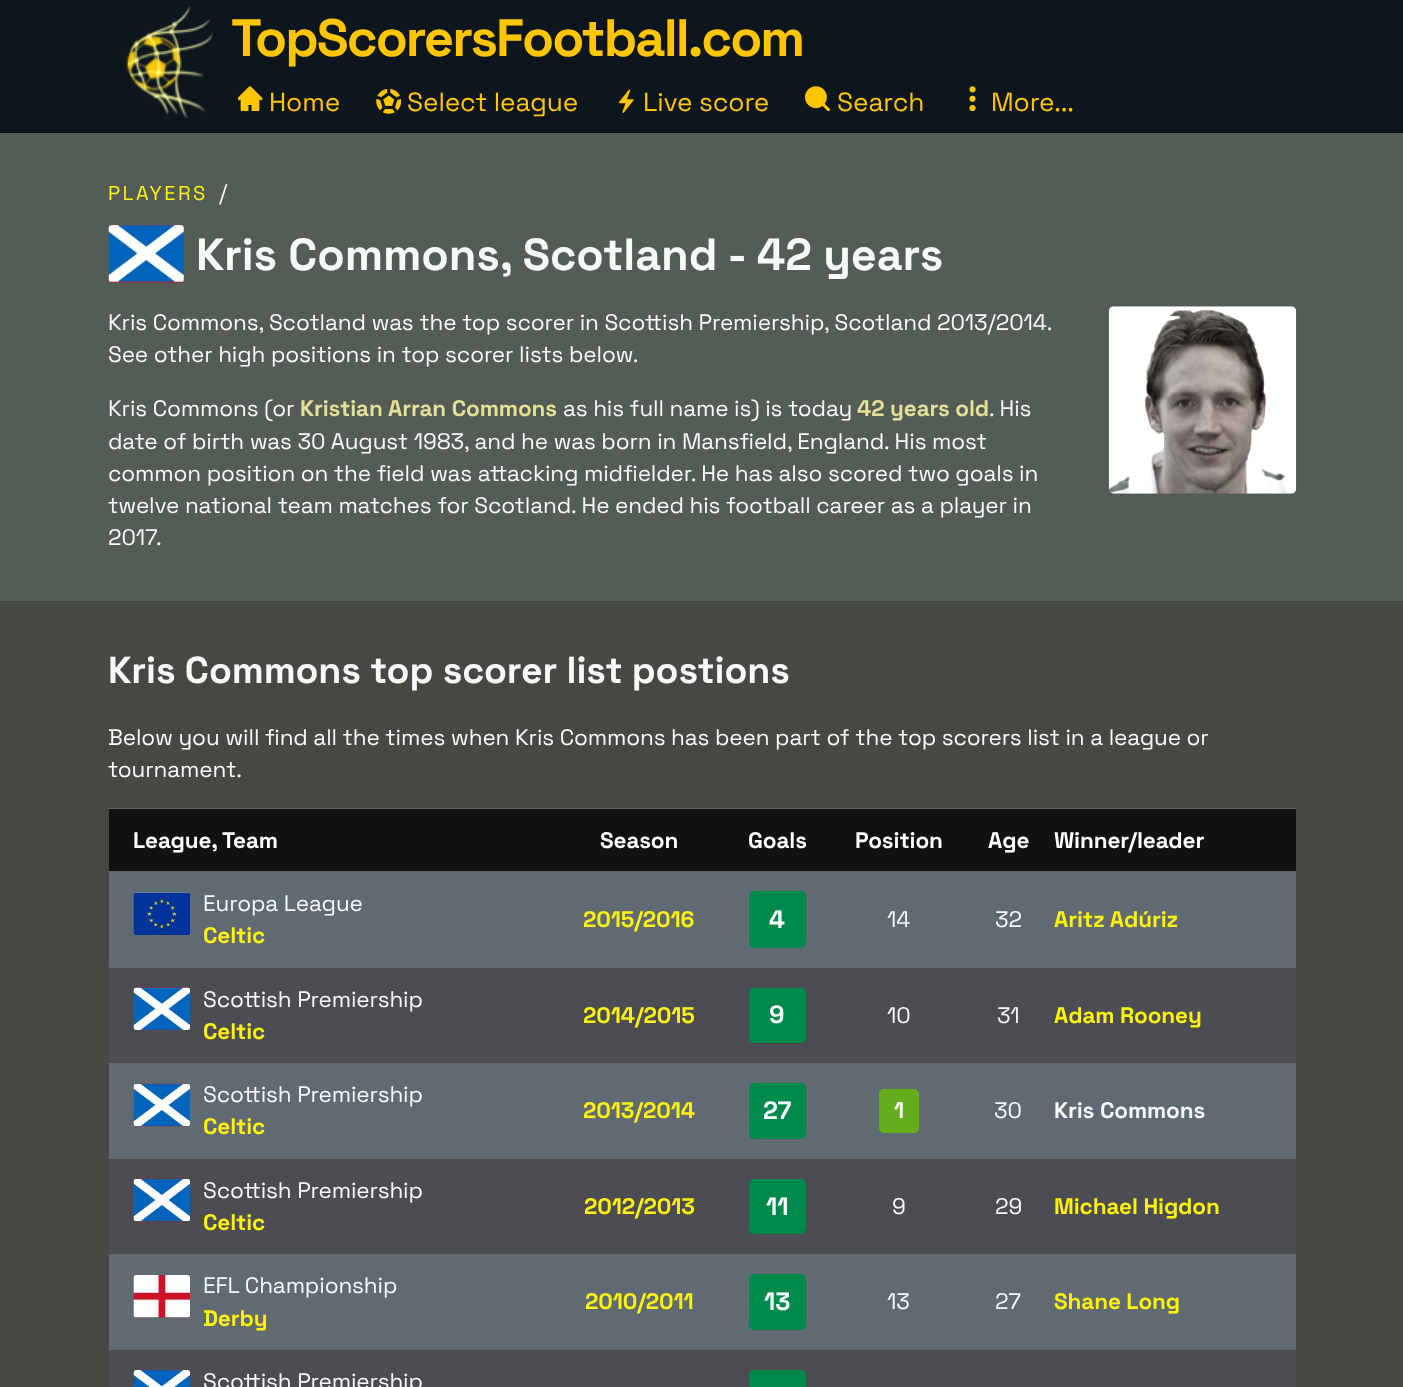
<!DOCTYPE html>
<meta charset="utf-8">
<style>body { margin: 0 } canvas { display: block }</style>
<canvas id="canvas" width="1403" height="1387"></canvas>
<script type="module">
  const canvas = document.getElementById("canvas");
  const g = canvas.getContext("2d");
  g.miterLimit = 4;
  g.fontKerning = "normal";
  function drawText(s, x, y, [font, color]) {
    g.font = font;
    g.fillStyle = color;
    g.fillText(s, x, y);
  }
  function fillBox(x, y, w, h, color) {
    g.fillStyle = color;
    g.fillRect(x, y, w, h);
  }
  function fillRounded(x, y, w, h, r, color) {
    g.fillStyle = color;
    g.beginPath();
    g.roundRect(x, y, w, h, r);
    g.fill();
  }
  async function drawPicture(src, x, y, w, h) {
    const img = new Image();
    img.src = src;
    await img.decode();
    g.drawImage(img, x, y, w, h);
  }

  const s1 = ["bold 52.5px Space Grotesk", "#FFC600"];
  const s2 = ["26.25px Space Grotesk", "#FFC600"];
  const s3 = ["20px Space Grotesk", "#FFF20E"];
  const s4 = ["22.5px Space Grotesk", "#F7F9FB"];
  const s5 = ["bold 45px Space Grotesk", "#F7F9FB"];
  const s6 = ["bold 22.5px Space Grotesk", "#E5E098"];
  const s7 = ["bold 37.5px Space Grotesk", "#F7F9FB"];
  const s8 = ["bold 22.5px Space Grotesk", "#FFFFFF"];
  const s9 = ["bold 22.5px Space Grotesk", "#FFF20E"];
  const s10 = ["bold 25px Space Grotesk", "#FFFFFF"];
  const s11 = ["bold 22.5px Space Grotesk", "#F7F9FB"];

  fillBox(0, 0, 1403, 1387, "#0D161D");
  await drawPicture("pic1.png", 126, 6, 87, 113);
  g.letterSpacing = "-1.9px";
  drawText("TopScorersFootball.com", 231, 56, s1);
  await drawPicture("pic2.png", 238, 86, 25, 25);
  g.letterSpacing = "-0.12px";
  drawText("Home", 269, 111, s2);
  await drawPicture("pic3.png", 376, 89, 25, 25);
  drawText("Select league", 407, 111, s2);
  await drawPicture("pic4.png", 618, 89, 16, 24);
  drawText("Live score", 643, 111, s2);
  await drawPicture("pic5.png", 805, 86, 25, 25);
  drawText("Search", 837, 111, s2);
  await drawPicture("pic6.png", 969, 86, 7, 25);
  drawText("More...", 991, 111, s2);
  fillBox(0, 133, 1403, 468, "#535C55");
  g.letterSpacing = "2.5px";
  drawText("PLAYERS", 108, 200, s3);
  g.letterSpacing = "-0.12px";
  drawText("/", 219, 200, s4);
  await drawPicture("pic7.png", 108, 225, 76, 58);
  drawText("Kris Commons, Scotland - 42 years", 196, 270, s5);
  drawText("Kris Commons, Scotland was the top scorer in Scottish Premiership, Scotland 2013/2014.", 108, 330, s4);
  drawText("See other high positions in top scorer lists below.", 108, 362, s4);
  await drawPicture("pic8.png", 1108, 306, 189, 188);
  drawText("Kris Commons (or", 108, 416, s4);
  drawText("Kristian Arran Commons", 300, 416, s6);
  drawText("as his full name is) is today", 563, 416, s4);
  drawText("42 years old", 857, 416, s6);
  drawText(". His", 989, 416, s4);
  drawText("date of birth was 30 August 1983, and he was born in Mansfield, England. His most", 108, 449, s4);
  drawText("common position on the field was attacking midfielder. He has also scored two goals in", 108, 481, s4);
  drawText("twelve national team matches for Scotland. He ended his football career as a player in", 108, 513, s4);
  drawText("2017.", 108, 545, s4);
  fillBox(0, 601, 1403, 786, "#464844");
  drawText("Kris Commons top scorer list postions", 108, 683, s7);
  drawText("Below you will find all the times when Kris Commons has been part of the top scorers list in a league or", 108, 745, s4);
  drawText("tournament.", 108, 777, s4);
  fillBox(109, 809, 1187, 62, "#111111");
  drawText("League, Team", 133, 848, s8);
  drawText("Season", 600, 848, s8);
  drawText("Goals", 748, 848, s8);
  drawText("Position", 855, 848, s8);
  drawText("Age", 988, 848, s8);
  fillBox(108, 808, 1188, 1, "#666666");
  drawText("Winner/leader", 1054, 848, s8);
  fillBox(109, 872, 1187, 96, "#5F6A72");
  await drawPicture("pic9.png", 133, 892, 57, 43);
  drawText("Europa League", 203, 911, s4);
  drawText("Celtic", 203, 943, s9);
  drawText("2015/2016", 583, 927, s9);
  fillRounded(749, 891, 57, 57, 5, "#00894C");
  drawText("4", 769, 928, s10);
  drawText("14", 887, 927, s4);
  drawText("32", 995, 927, s4);
  fillBox(108, 871, 1188, 1, "#666666");
  drawText("Aritz Adúriz", 1054, 927, s9);
  fillBox(109, 968, 1187, 95, "#4B4D52");
  await drawPicture("pic10.png", 133, 987, 57, 43);
  drawText("Scottish Premiership", 203, 1007, s4);
  drawText("Celtic", 203, 1039, s9);
  drawText("2014/2015", 583, 1023, s9);
  fillRounded(749, 988, 57, 55, 5, "#00894C");
  drawText("9", 769, 1023, s10);
  drawText("10", 887, 1023, s4);
  drawText("31", 997, 1023, s4);
  fillBox(108, 966, 1188, 1, "#666666");
  drawText("Adam Rooney", 1054, 1023, s9);
  fillBox(109, 1064, 1187, 94, "#5F6A72");
  await drawPicture("pic11.png", 133, 1083, 58, 44);
  drawText("Scottish Premiership", 203, 1102, s4);
  drawText("Celtic", 203, 1134, s9);
  drawText("2013/2014", 583, 1118, s9);
  fillRounded(749, 1083, 57, 56, 5, "#00894C");
  drawText("27", 763, 1119, s10);
  fillRounded(879, 1089, 40, 44, 5, "#65AD1C");
  drawText("1", 894, 1118, s11);
  drawText("30", 994, 1118, s4);
  fillBox(108, 1063, 1188, 1, "#666666");
  drawText("Kris Commons", 1054, 1118, s11);
  fillBox(109, 1159, 1187, 95, "#4B4D52");
  await drawPicture("pic12.png", 133, 1178, 58, 44);
  drawText("Scottish Premiership", 203, 1198, s4);
  drawText("Celtic", 203, 1230, s9);
  drawText("2012/2013", 584, 1214, s9);
  fillRounded(749, 1179, 57, 55, 5, "#00894C");
  drawText("11", 766, 1215, s10);
  drawText("9", 892, 1214, s4);
  drawText("29", 995, 1214, s4);
  fillBox(108, 1158, 1188, 1, "#666666");
  drawText("Michael Higdon", 1054, 1214, s9);
  fillBox(109, 1255, 1187, 94, "#5F6A72");
  await drawPicture("pic13.png", 133, 1275, 57, 43);
  drawText("EFL Championship", 203, 1293, s4);
  drawText("Derby", 203, 1326, s9);
  drawText("2010/2011", 585, 1309, s9);
  fillRounded(749, 1274, 57, 56, 5, "#00894C");
  drawText("13", 764, 1310, s10);
  drawText("13", 887, 1309, s4);
  drawText("27", 995, 1309, s4);
  fillBox(108, 1254, 1188, 1, "#666666");
  drawText("Shane Long", 1054, 1309, s9);
  fillBox(108, 1349, 1188, 1, "#666666");
  fillBox(109, 1350, 1187, 37, "#4B4D52");
  await drawPicture("pic14.png", 133, 1370, 57, 17);
  drawText("Scottish Premiership", 203, 1389, s4);
  fillRounded(749, 1370, 57, 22, 5, "#00894C");
</script>
